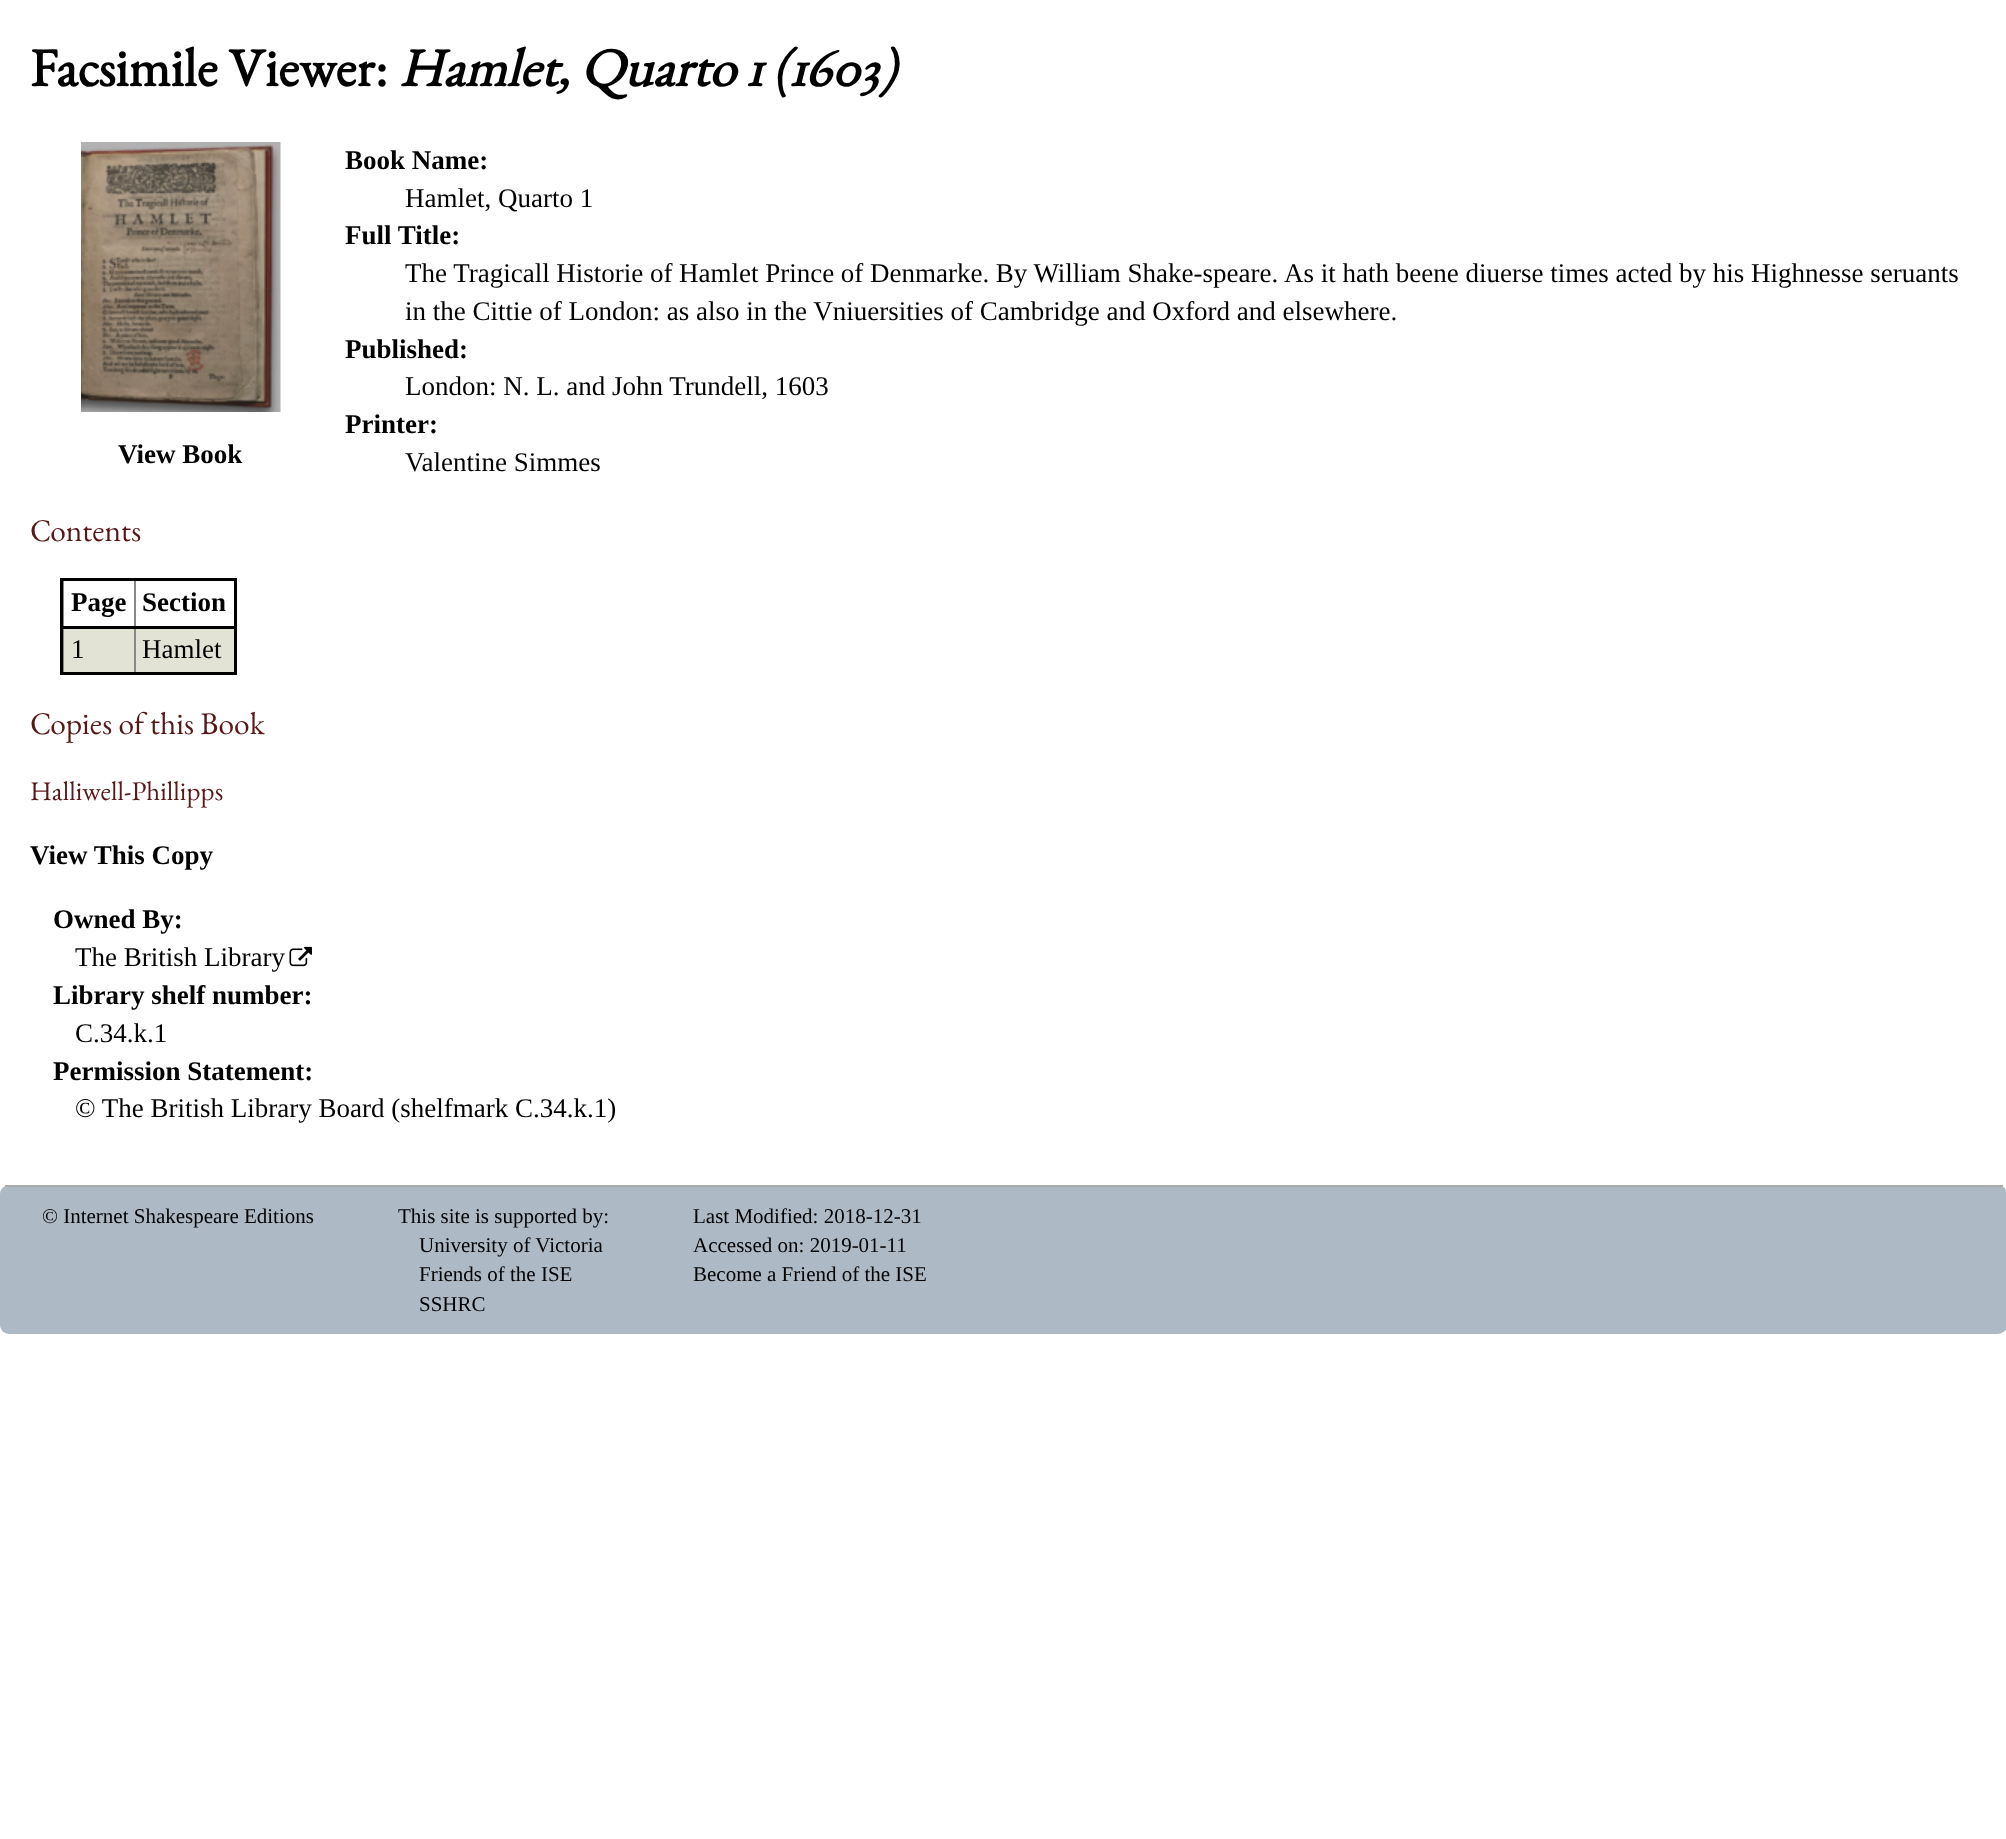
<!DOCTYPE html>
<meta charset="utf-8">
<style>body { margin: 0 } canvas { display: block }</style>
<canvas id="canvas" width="2006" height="1839"></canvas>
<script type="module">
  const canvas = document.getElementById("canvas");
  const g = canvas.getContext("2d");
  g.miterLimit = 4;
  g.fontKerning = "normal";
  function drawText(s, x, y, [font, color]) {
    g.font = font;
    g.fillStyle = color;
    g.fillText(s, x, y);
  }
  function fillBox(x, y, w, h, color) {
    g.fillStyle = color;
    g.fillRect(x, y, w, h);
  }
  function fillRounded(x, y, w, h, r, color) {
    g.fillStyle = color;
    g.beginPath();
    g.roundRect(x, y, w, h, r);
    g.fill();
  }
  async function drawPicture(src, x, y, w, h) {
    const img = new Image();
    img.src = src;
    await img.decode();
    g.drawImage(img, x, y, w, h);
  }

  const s1 = ["bold 54px EB Garamond", "#000000"];
  const s2 = ["italic bold 54px EB Garamond", "#000000"];
  const s3 = ["bold 27px Liberation Serif", "#000000"];
  const s4 = ["27px Liberation Serif", "#000000"];
  const s5 = ["31.5px EB Garamond", "#591818"];
  const s6 = ["27px EB Garamond", "#591818"];
  const s7 = ["21px Liberation Serif", "#000000"];

  fillBox(0, 0, 2006, 1839, "#FFFFFF");
  drawText("Facsimile Viewer:", 30, 86, s1);
  drawText("Hamlet, Quarto 1 (1603)", 399, 86, s2);
  await drawPicture("pic1.png", 81, 142, 200, 270);
  drawText("View Book", 118, 463, s3);
  drawText("Book Name:", 345, 169, s3);
  drawText("Hamlet, Quarto 1", 405, 207, s4);
  drawText("Full Title:", 345, 244, s3);
  g.wordSpacing = "-0.1px";
  drawText("The Tragicall Historie of Hamlet Prince of Denmarke. By William Shake-speare.", 405, 282, s4);
  g.wordSpacing = "0px";
  drawText("As it hath beene diuerse times acted by his Highnesse seruants", 1284, 282, s4);
  drawText("in the Cittie of London: as also in the Vniuersities of Cambridge and Oxford and elsewhere.", 405, 320, s4);
  drawText("Published:", 345, 358, s3);
  drawText("London: N. L. and John Trundell, 1603", 405, 395, s4);
  drawText("Printer:", 345, 433, s3);
  drawText("Valentine Simmes", 405, 471, s4);
  drawText("Contents", 30, 541, s5);
  fillBox(63, 579, 1, 95, "#888888");
  fillBox(64, 629, 170, 43, "#E2E2D5");
  fillBox(134, 579, 2, 95, "#888888");
  fillBox(60, 578, 177, 3, "#000000");
  fillBox(234, 578, 3, 97, "#000000");
  fillBox(60, 672, 177, 3, "#000000");
  fillBox(60, 578, 3, 97, "#000000");
  drawText("Page", 71, 611, s3);
  fillBox(60, 626, 177, 3, "#000000");
  drawText("Section", 142, 611, s3);
  drawText("1", 71, 658, s4);
  drawText("Hamlet", 142, 658, s4);
  drawText("Copies of this Book", 30, 734, s5);
  drawText("Halliwell-Phillipps", 30, 800, s6);
  drawText("View This Copy", 30, 864, s3);
  drawText("Owned By:", 53, 928, s3);
  drawText("The British Library", 75, 966, s4);
  await drawPicture("pic2.png", 289, 946, 23, 21);
  drawText("Library shelf number:", 53, 1004, s3);
  drawText("C.34.k.1", 75, 1042, s4);
  drawText("Permission Statement:", 53, 1080, s3);
  drawText("© The British Library Board (shelfmark C.34.k.1)", 75, 1117, s4);
  fillRounded(0, 1185, 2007, 149, 9, "#AEB9C6");
  fillBox(5, 1185, 1998, 2, "#AAAAAA");
  drawText("© Internet Shakespeare Editions", 42, 1223, s7);
  drawText("This site is supported by:", 398, 1223, s7);
  drawText("University of Victoria", 419, 1252, s7);
  drawText("Friends of the ISE", 419, 1281, s7);
  drawText("SSHRC", 419, 1311, s7);
  drawText("Last Modified: 2018-12-31", 693, 1223, s7);
  drawText("Accessed on: 2019-01-11", 693, 1252, s7);
  drawText("Become a Friend of the ISE", 693, 1281, s7);
</script>
